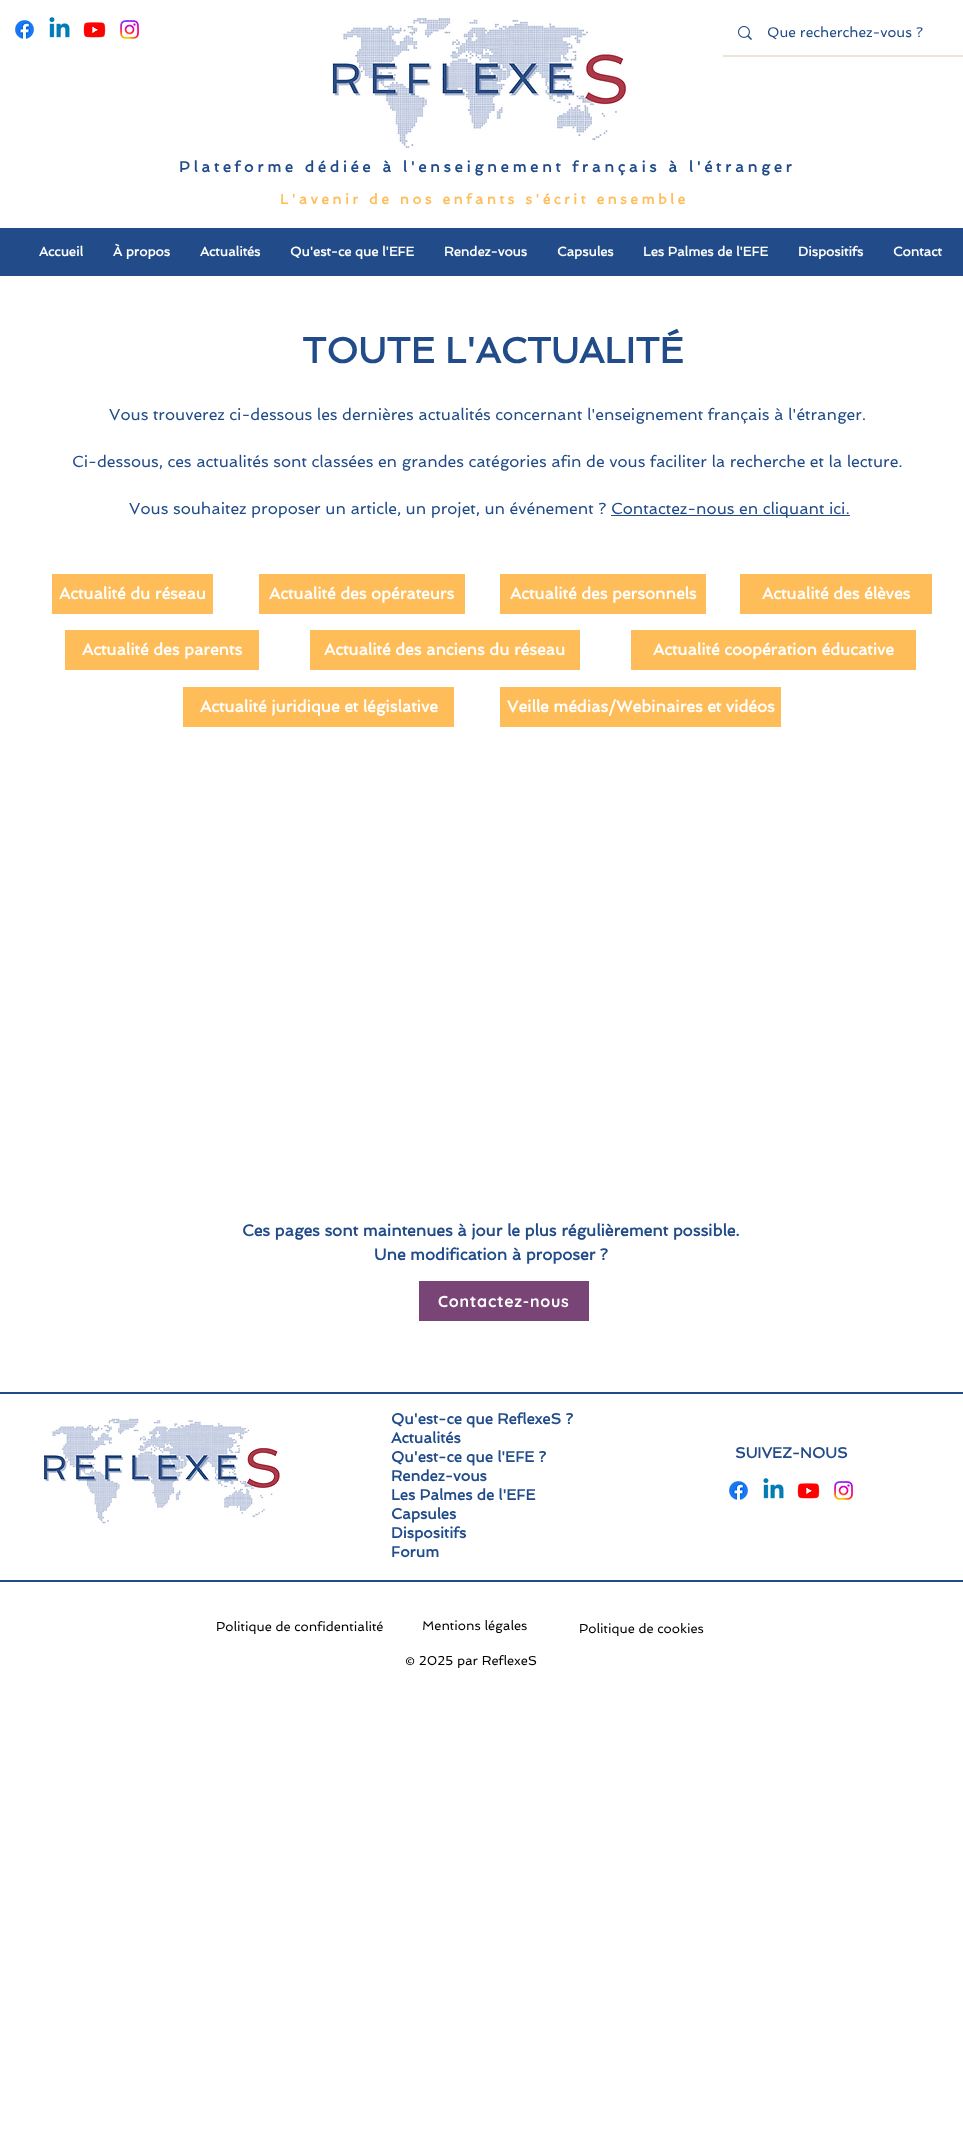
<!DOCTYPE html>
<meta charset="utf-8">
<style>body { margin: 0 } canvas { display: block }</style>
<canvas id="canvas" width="963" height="2136"></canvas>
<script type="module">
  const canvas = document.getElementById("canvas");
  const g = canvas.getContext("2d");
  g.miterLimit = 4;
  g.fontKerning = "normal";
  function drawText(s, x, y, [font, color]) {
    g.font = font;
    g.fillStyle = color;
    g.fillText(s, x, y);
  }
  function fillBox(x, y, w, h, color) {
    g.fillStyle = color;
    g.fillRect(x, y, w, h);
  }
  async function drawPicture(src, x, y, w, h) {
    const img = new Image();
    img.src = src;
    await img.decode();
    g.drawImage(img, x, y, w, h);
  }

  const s1 = ["14px Spinnaker", "#214C89"];
  const s2 = ["bold 15px Spinnaker", "#214C89"];
  const s3 = ["bold 14px Spinnaker", "#FFBD59"];
  const s4 = ["bold 13px Spinnaker", "#FFFFFF"];
  const s5 = ["bold 36px Spinnaker", "#214C89"];
  const s6 = ["16px Spinnaker", "#214C89"];
  const s7 = ["bold 16px Spinnaker", "#FFFFFF"];
  const s8 = ["bold 16px Spinnaker", "#214C89"];
  const s9 = ["bold 16px Quicksand", "#FFFFFF"];
  const s10 = ["13px Spinnaker", "#000000"];

  fillBox(0, 0, 963, 2136, "#FFFFFF");
  await drawPicture("pic1.png", 15, 20, 19, 19);
  await drawPicture("pic2.png", 49, 17, 21, 21);
  await drawPicture("pic3.png", 83, 22, 23, 16);
  await drawPicture("pic4.png", 120, 20, 19, 19);
  await drawPicture("pic5.png", 332, 18, 296, 130);
  fillBox(723, 55, 240, 2, "#EBE5D6");
  await drawPicture("pic6.png", 738, 26, 14, 14);
  drawText("Que recherchez-vous ?", 767, 37, s1);
  g.letterSpacing = "3.75px";
  drawText("Plateforme dédiée à l'enseignement français à l'étranger", 179, 172, s2);
  g.letterSpacing = "3.5px";
  drawText("L'avenir de nos enfants s'écrit ensemble", 280, 204, s3);
  fillBox(0, 228, 963, 48, "#214C89");
  g.letterSpacing = "0px";
  drawText("Accueil", 39, 256, s4);
  drawText("À propos", 113, 256, s4);
  drawText("Actualités", 200, 256, s4);
  drawText("Qu'est-ce que l'EFE", 290, 256, s4);
  drawText("Rendez-vous", 444, 256, s4);
  drawText("Capsules", 557, 256, s4);
  drawText("Les Palmes de l'EFE", 643, 256, s4);
  drawText("Dispositifs", 798, 256, s4);
  drawText("Contact", 893, 256, s4);
  drawText("TOUTE L'ACTUALITÉ", 302, 363, s5);
  drawText("Vous trouverez ci-dessous les dernières actualités concernant l'enseignement français à l'étranger.", 109, 420, s6);
  drawText("Ci-dessous, ces actualités sont classées en grandes catégories afin de vous faciliter la recherche et la lecture.", 72, 467, s6);
  drawText("Vous souhaitez proposer un article, un projet, un événement ?", 129, 514, s6);
  fillBox(611, 515, 239, 1, "#214C89");
  drawText("Contactez-nous en cliquant ici.", 611, 514, s6);
  fillBox(52, 574, 161, 40, "#FFBD59");
  drawText("Actualité du réseau", 59, 599, s7);
  fillBox(259, 574, 206, 40, "#FFBD59");
  drawText("Actualité des opérateurs", 269, 599, s7);
  fillBox(500, 574, 206, 40, "#FFBD59");
  drawText("Actualité des personnels", 510, 599, s7);
  fillBox(740, 574, 192, 40, "#FFBD59");
  drawText("Actualité des élèves", 762, 599, s7);
  fillBox(65, 630, 194, 40, "#FFBD59");
  drawText("Actualité des parents", 82, 655, s7);
  fillBox(310, 630, 270, 40, "#FFBD59");
  drawText("Actualité des anciens du réseau", 324, 655, s7);
  fillBox(631, 630, 285, 40, "#FFBD59");
  drawText("Actualité coopération éducative", 653, 655, s7);
  fillBox(183, 687, 271, 40, "#FFBD59");
  drawText("Actualité juridique et législative", 200, 712, s7);
  fillBox(500, 687, 281, 40, "#FFBD59");
  drawText("Veille médias/Webinaires et vidéos", 507, 712, s7);
  drawText("Ces pages sont maintenues à jour le plus régulièrement possible.", 242, 1236, s8);
  drawText("Une modification à proposer ?", 374, 1260, s8);
  fillBox(419, 1281, 170, 40, "#794577");
  g.letterSpacing = "0.75px";
  drawText("Contactez-nous", 438, 1307, s9);
  fillBox(0, 1392, 963, 2, "#214C89");
  await drawPicture("pic7.png", 44, 1418, 236, 106);
  g.letterSpacing = "0px";
  drawText("Qu'est-ce que ReflexeS ?", 391, 1424, s2);
  drawText("Actualités", 391, 1443, s2);
  drawText("Qu'est-ce que l'EFE ?", 391, 1462, s2);
  drawText("Rendez-vous", 391, 1481, s2);
  drawText("Les Palmes de l'EFE", 391, 1500, s2);
  drawText("Capsules", 391, 1519, s2);
  drawText("Dispositifs", 391, 1538, s2);
  drawText("Forum", 391, 1557, s2);
  drawText("SUIVEZ-NOUS", 735, 1458, s2);
  await drawPicture("pic1.png", 729, 1481, 19, 19);
  await drawPicture("pic2.png", 763, 1478, 21, 21);
  await drawPicture("pic3.png", 797, 1483, 23, 16);
  await drawPicture("pic4.png", 834, 1481, 19, 19);
  fillBox(0, 1580, 963, 2, "#214C89");
  drawText("Politique de confidentialité", 216, 1631, s10);
  drawText("Mentions légales", 422, 1630, s10);
  drawText("Politique de cookies", 579, 1633, s10);
  drawText("© 2025 par ReflexeS", 405, 1665, s10);
</script>
